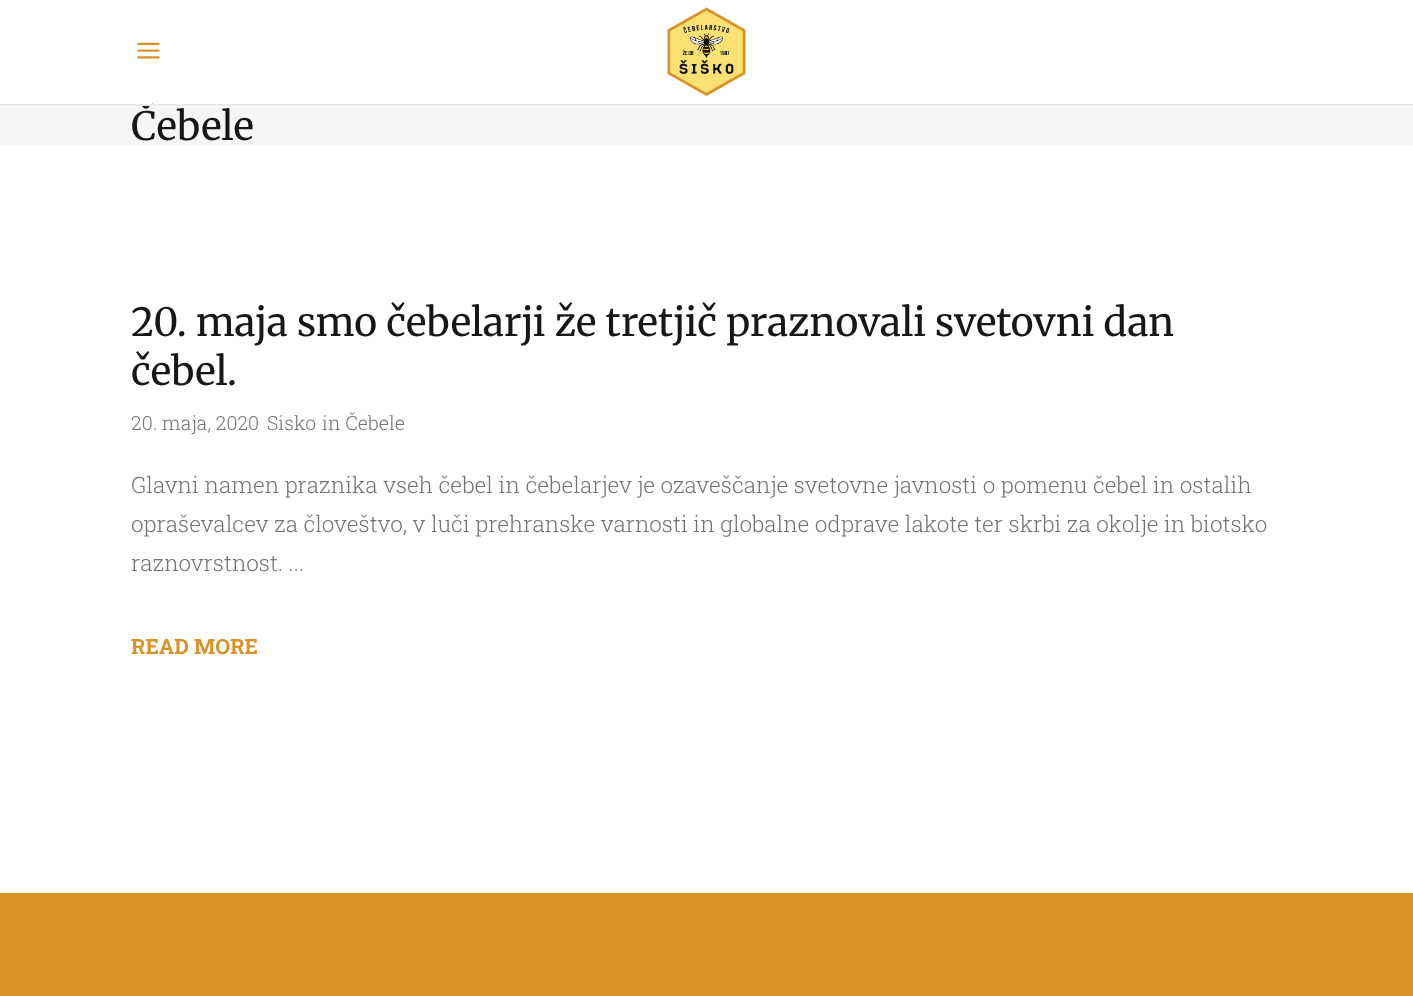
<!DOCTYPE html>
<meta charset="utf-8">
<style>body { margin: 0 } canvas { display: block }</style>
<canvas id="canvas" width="1413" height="996"></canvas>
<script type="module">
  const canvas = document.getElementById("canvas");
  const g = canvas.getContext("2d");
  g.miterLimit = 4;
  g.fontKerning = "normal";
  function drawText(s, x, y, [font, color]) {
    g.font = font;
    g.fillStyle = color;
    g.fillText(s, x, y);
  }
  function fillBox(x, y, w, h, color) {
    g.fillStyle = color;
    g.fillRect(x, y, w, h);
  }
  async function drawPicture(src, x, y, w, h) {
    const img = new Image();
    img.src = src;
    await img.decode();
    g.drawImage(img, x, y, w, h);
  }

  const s1 = ["39px Merriweather", "#171717"];
  const s2 = ["300 19.5px Roboto Slab", "#737373"];
  const s3 = ["300 22.5px Roboto Slab", "#737373"];
  const s4 = ["bold 21px Roboto Slab", "#DA9228"];

  fillBox(0, 0, 1413, 996, "#FFFFFF");
  fillBox(0, 107, 1413, 39, "#F6F6F6");
  drawText("Čebele", 131, 140, s1);
  fillBox(138, 102, 14, 2, "#FFFFFF");
  fillBox(0, 104, 1413, 2, "#EDEBE9");
  await drawPicture("pic1.png", 137, 42, 23, 17);
  await drawPicture("pic2.png", 667, 7, 79, 89);
  drawText("20. maja smo čebelarji že tretjič praznovali svetovni dan", 131, 336, s1);
  drawText("čebel.", 131, 385, s1);
  drawText("20. maja, 2020", 131, 430, s2);
  drawText("Sisko", 267, 430, s2);
  drawText("in Čebele", 322, 430, s2);
  drawText("Glavni namen praznika vseh čebel in čebelarjev je ozaveščanje svetovne javnosti o pomenu čebel in ostalih", 131, 493, s3);
  drawText("opraševalcev za človeštvo, v luči prehranske varnosti in globalne odprave lakote ter skrbi za okolje in biotsko", 131, 532, s3);
  drawText("raznovrstnost. ...", 131, 571, s3);
  drawText("READ MORE", 131, 654, s4);
  fillBox(0, 893, 1413, 103, "#DA9228");
</script>
